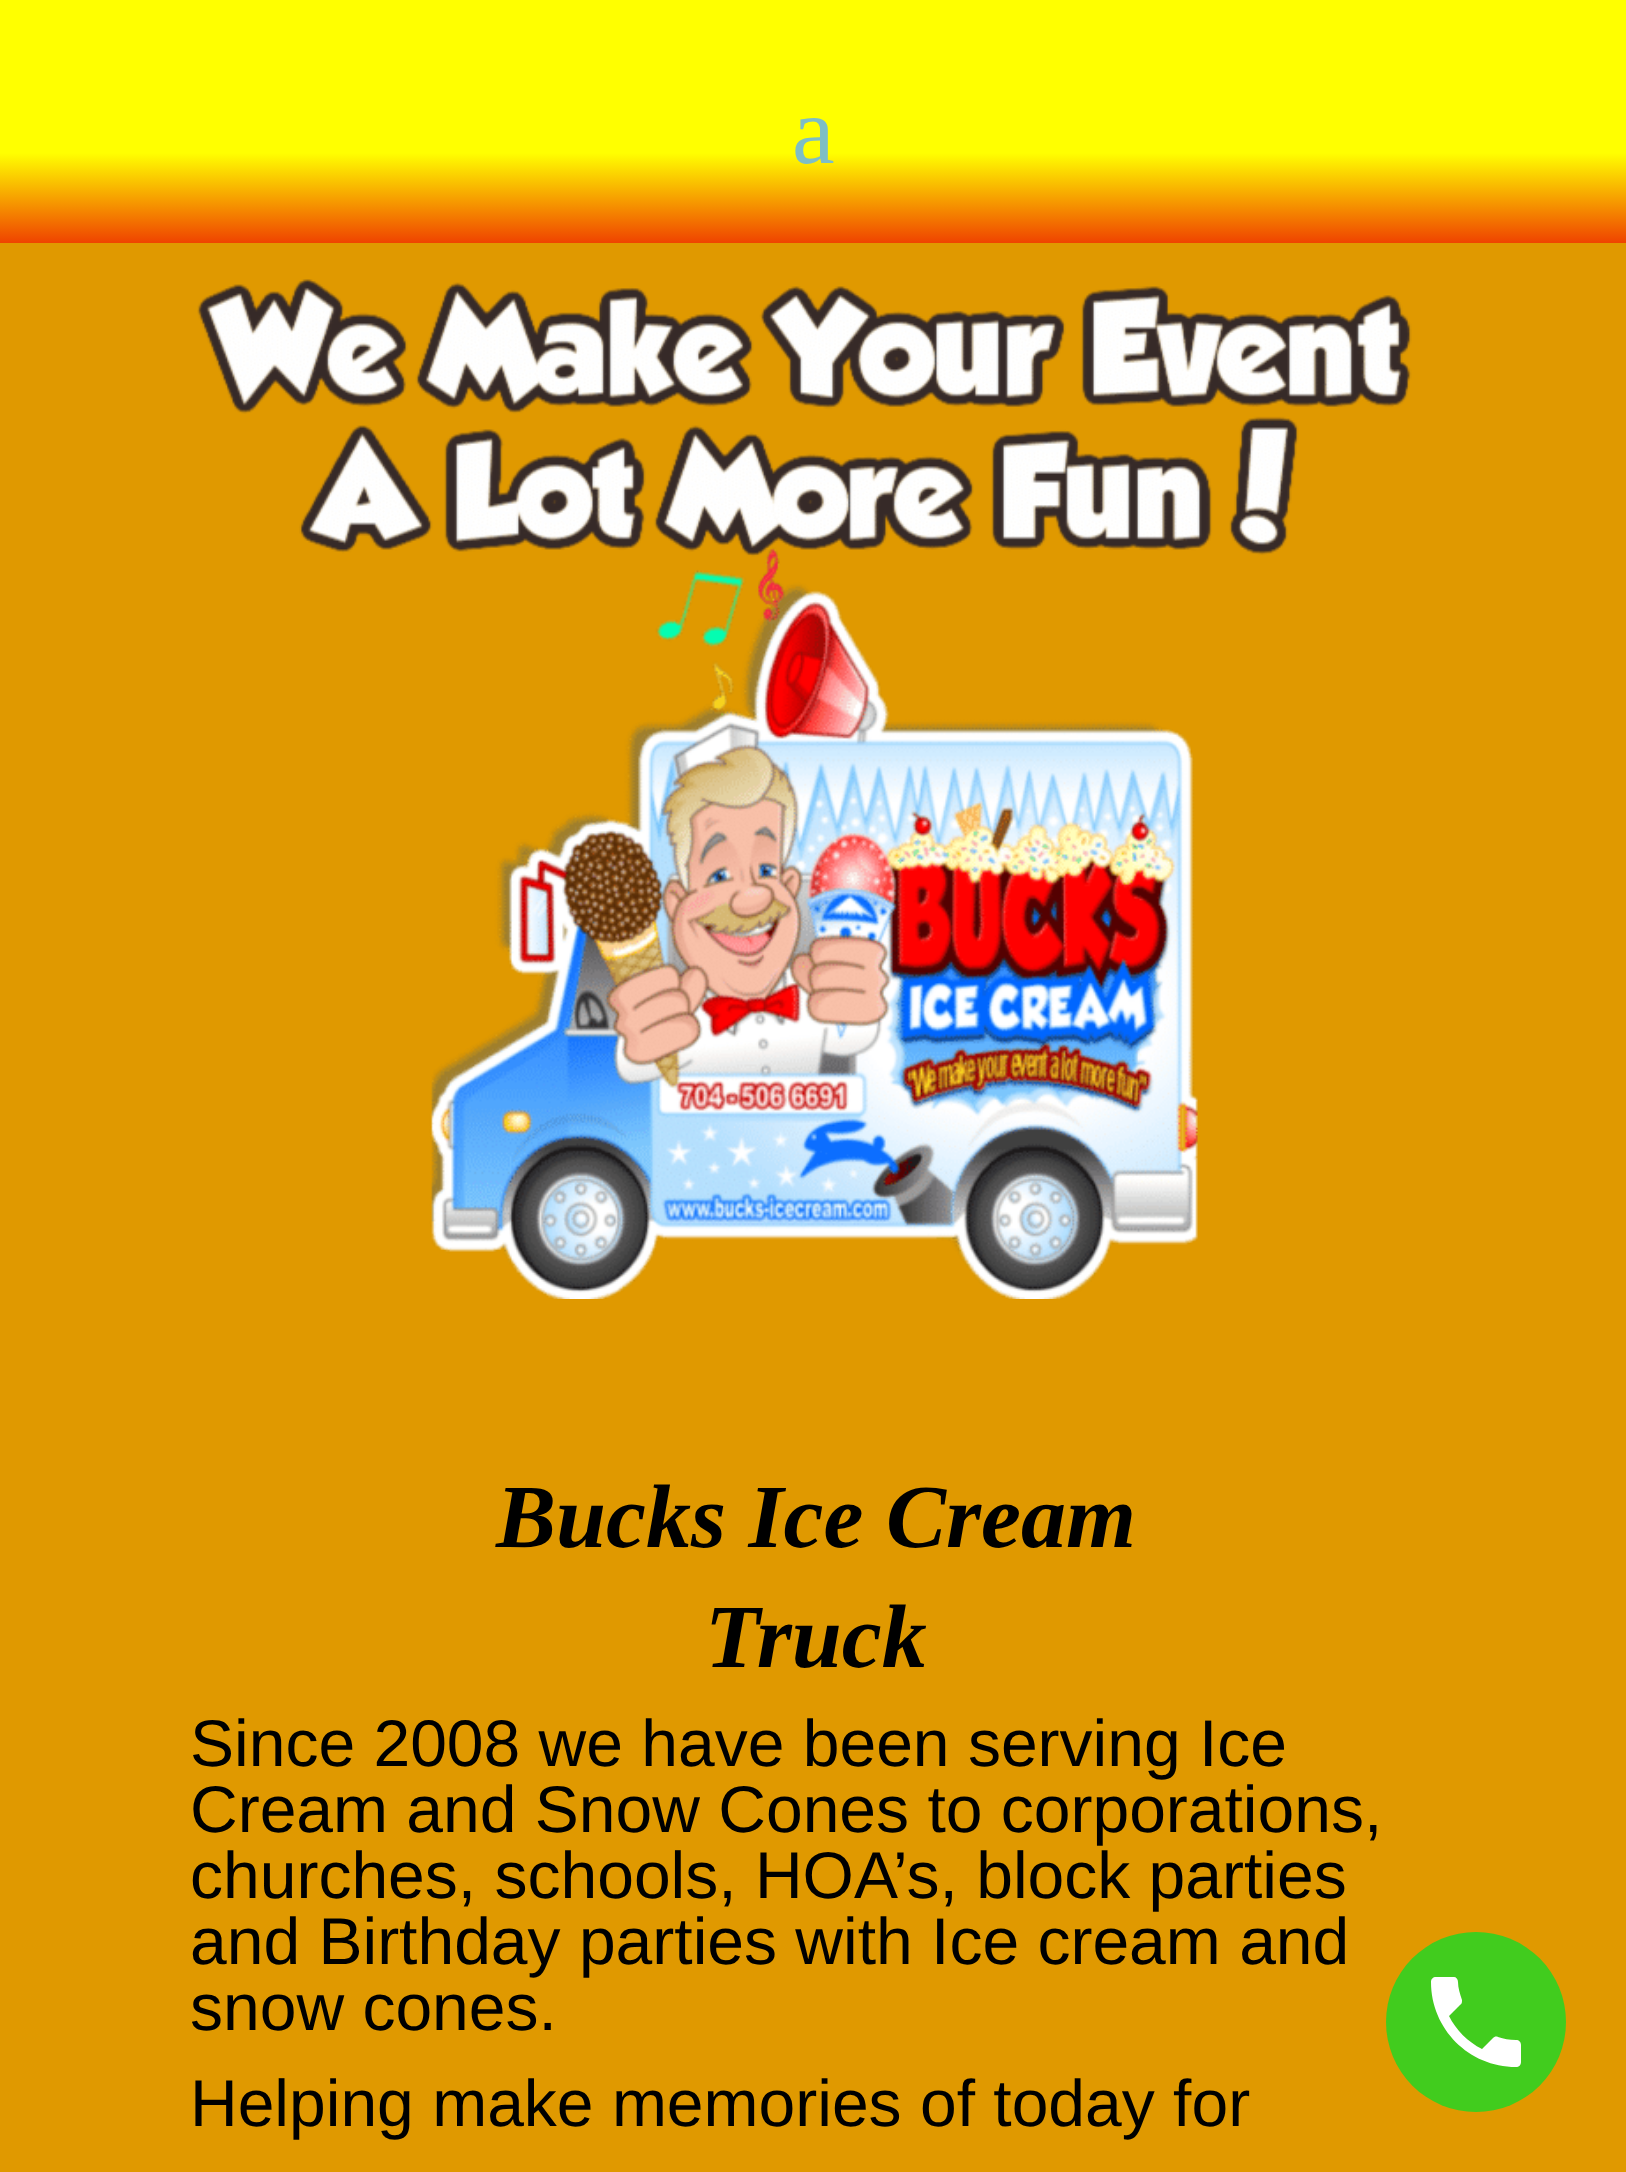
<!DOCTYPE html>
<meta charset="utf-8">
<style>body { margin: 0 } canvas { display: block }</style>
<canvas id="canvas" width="1626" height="2172"></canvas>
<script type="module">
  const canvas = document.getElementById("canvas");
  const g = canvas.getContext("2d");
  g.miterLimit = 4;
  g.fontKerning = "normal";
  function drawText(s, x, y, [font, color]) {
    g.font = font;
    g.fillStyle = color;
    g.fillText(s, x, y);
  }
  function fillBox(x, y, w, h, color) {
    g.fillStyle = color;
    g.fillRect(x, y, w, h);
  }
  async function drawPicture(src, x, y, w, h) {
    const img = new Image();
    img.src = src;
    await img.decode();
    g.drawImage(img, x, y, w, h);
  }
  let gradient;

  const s1 = ["96px Liberation Serif", "#7EBEC5"];
  const s2 = ["italic bold 90px Liberation Serif", "#000000"];
  const s3 = ["66px Liberation Sans", "#000000"];

  fillBox(0, 0, 1626, 2172, "#FFFFFF");
  gradient = g.createLinearGradient(813, 0, 813, 243);
  gradient.addColorStop(0.63, "#FFFF00");
  gradient.addColorStop(1, "#EF4300");
  g.fillStyle = gradient;
  g.fillRect(0, 0, 1626, 243);
  drawText("a", 792, 163, s1);
  fillBox(0, 243, 1626, 1929, "#E09900");
  await drawPicture("pic1.png", 197, 279, 1215, 1020);
  drawText("Bucks Ice Cream", 496, 1547, s2);
  drawText("Truck", 705, 1667, s2);
  drawText("Since 2008 we have been serving Ice", 190, 1766, s3);
  drawText("Cream and Snow Cones to corporations,", 190, 1832, s3);
  drawText("churches, schools, HOA’s, block parties", 190, 1898, s3);
  drawText("and Birthday parties with Ice cream and", 190, 1964, s3);
  drawText("snow cones.", 190, 2030, s3);
  drawText("Helping make memories of today for", 190, 2126, s3);
  g.fillStyle = "#41CC1E";
  g.beginPath();
  g.arc(1476, 2022, 90, 0, Math.PI * 2);
  g.fill();
  g.fillStyle = "#FFFFFF";
  g.beginPath();
  g.moveTo(1449, 2016);
  g.bezierCurveTo(1456, 2030, 1468, 2042, 1482, 2049);
  g.lineTo(1493, 2038);
  g.bezierCurveTo(1494, 2037, 1496, 2036, 1498, 2037);
  g.bezierCurveTo(1504, 2039, 1509, 2040, 1516, 2040);
  g.bezierCurveTo(1519, 2040, 1521, 2042, 1521, 2045);
  g.lineTo(1521, 2062);
  g.bezierCurveTo(1521, 2065, 1519, 2067, 1516, 2067);
  g.bezierCurveTo(1469, 2067, 1431, 2029, 1431, 1982);
  g.bezierCurveTo(1431, 1979, 1433, 1977, 1436, 1977);
  g.lineTo(1454, 1977);
  g.bezierCurveTo(1456, 1977, 1458, 1979, 1458, 1982);
  g.bezierCurveTo(1458, 1988, 1460, 1994, 1462, 2000);
  g.bezierCurveTo(1462, 2002, 1462, 2004, 1460, 2005);
  g.closePath();
  g.fill();
</script>
